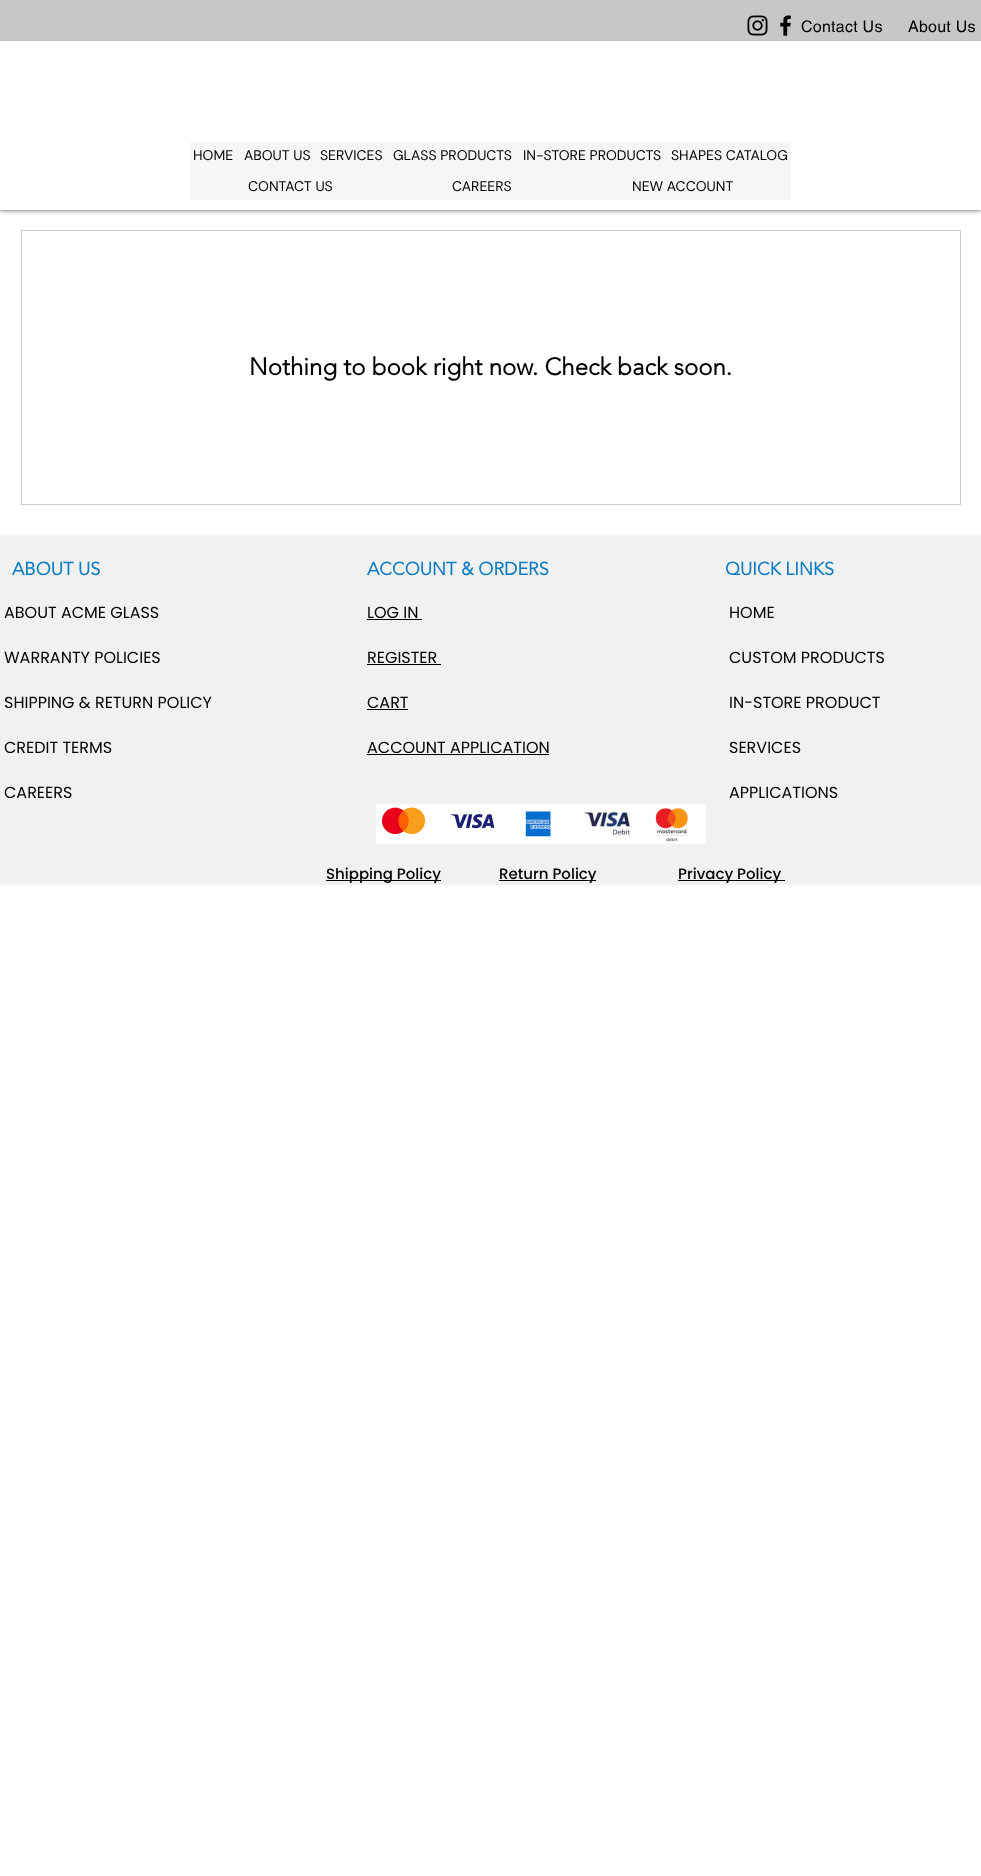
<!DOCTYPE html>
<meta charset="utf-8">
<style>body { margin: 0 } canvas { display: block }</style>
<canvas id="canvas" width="981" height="1876"></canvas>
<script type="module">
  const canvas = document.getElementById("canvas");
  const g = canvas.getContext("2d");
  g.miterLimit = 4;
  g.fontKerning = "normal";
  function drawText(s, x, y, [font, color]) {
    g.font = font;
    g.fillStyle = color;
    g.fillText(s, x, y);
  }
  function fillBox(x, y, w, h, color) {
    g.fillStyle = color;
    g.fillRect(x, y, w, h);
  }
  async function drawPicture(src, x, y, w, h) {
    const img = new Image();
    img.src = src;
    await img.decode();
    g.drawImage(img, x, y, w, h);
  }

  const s1 = ["16px helvetica", "#000000"];
  const s2 = ["14px DM Sans", "#000000"];
  const s3 = ["bold 24px 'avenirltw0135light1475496'", "#000000"];
  const s4 = ["bold 18px 'avenirltw0135light1475496'", "#0D7CC2"];
  const s5 = ["16px Poppins", "#000000"];
  const s6 = ["500 15px Poppins", "#000000"];

  fillBox(0, 0, 981, 1876, "#FFFFFF");
  g.save();
  g.beginPath();
  g.rect(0, 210, 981, 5);
  g.clip();
  g.fillStyle = "rgba(0, 0, 0, 0.7)";
  g.filter = "blur(2.5px)";
  g.beginPath();
  g.rect(0, 0, 981, 210);
  g.fill();
  g.filter = "none";
  g.restore();
  fillBox(0, 0, 981, 41, "#C7C7C7");
  await drawPicture("pic1.png", 747, 15, 21, 21);
  await drawPicture("pic2.png", 780, 15, 11, 21);
  g.letterSpacing = "0.25px";
  drawText("Contact Us", 801, 32, s1);
  drawText("About Us", 908, 32, s1);
  fillBox(190, 142, 601, 58, "#F6F6F6");
  g.letterSpacing = "0px";
  drawText("HOME", 193, 160, s2);
  drawText("ABOUT US", 244, 160, s2);
  drawText("SERVICES", 320, 160, s2);
  drawText("GLASS PRODUCTS", 393, 160, s2);
  drawText("IN-STORE PRODUCTS", 523, 160, s2);
  drawText("SHAPES CATALOG", 671, 160, s2);
  drawText("CONTACT US", 248, 191, s2);
  drawText("CAREERS", 452, 191, s2);
  drawText("NEW ACCOUNT", 632, 191, s2);
  g.strokeStyle = "#CCCCCC";
  g.strokeRect(21.5, 230.5, 939, 274);
  drawText("Nothing to book right now. Check back soon.", 249, 375, s3);
  fillBox(0, 535, 981, 350, "#F2F1F1");
  drawText("ABOUT US", 12, 575, s4);
  drawText("ACCOUNT & ORDERS", 367, 575, s4);
  drawText("QUICK LINKS", 725, 575, s4);
  drawText("ABOUT ACME GLASS", 4, 618, s5);
  drawText("WARRANTY POLICIES", 4, 663, s5);
  drawText("SHIPPING & RETURN POLICY", 4, 708, s5);
  drawText("CREDIT TERMS", 4, 753, s5);
  drawText("CAREERS", 4, 798, s5);
  drawText("LOG IN", 367, 618, s5);
  fillBox(367, 619, 55, 1, "#000000");
  drawText("REGISTER", 367, 663, s5);
  fillBox(367, 664, 74, 1, "#000000");
  drawText("CART", 367, 708, s5);
  fillBox(367, 709, 41, 1, "#000000");
  drawText("ACCOUNT APPLICATION", 367, 753, s5);
  fillBox(367, 754, 182, 1, "#000000");
  drawText("HOME", 729, 618, s5);
  drawText("CUSTOM PRODUCTS", 729, 663, s5);
  drawText("IN-STORE PRODUCT", 729, 708, s5);
  drawText("SERVICES", 729, 753, s5);
  drawText("APPLICATIONS", 729, 798, s5);
  await drawPicture("pic3.png", 376, 804, 330, 40);
  fillBox(326, 880, 115, 1, "#000000");
  drawText("Shipping Policy", 326, 879, s6);
  fillBox(499, 880, 97, 1, "#000000");
  drawText("Return Policy", 499, 879, s6);
  fillBox(678, 880, 107, 1, "#000000");
  drawText("Privacy Policy", 678, 879, s6);
</script>
